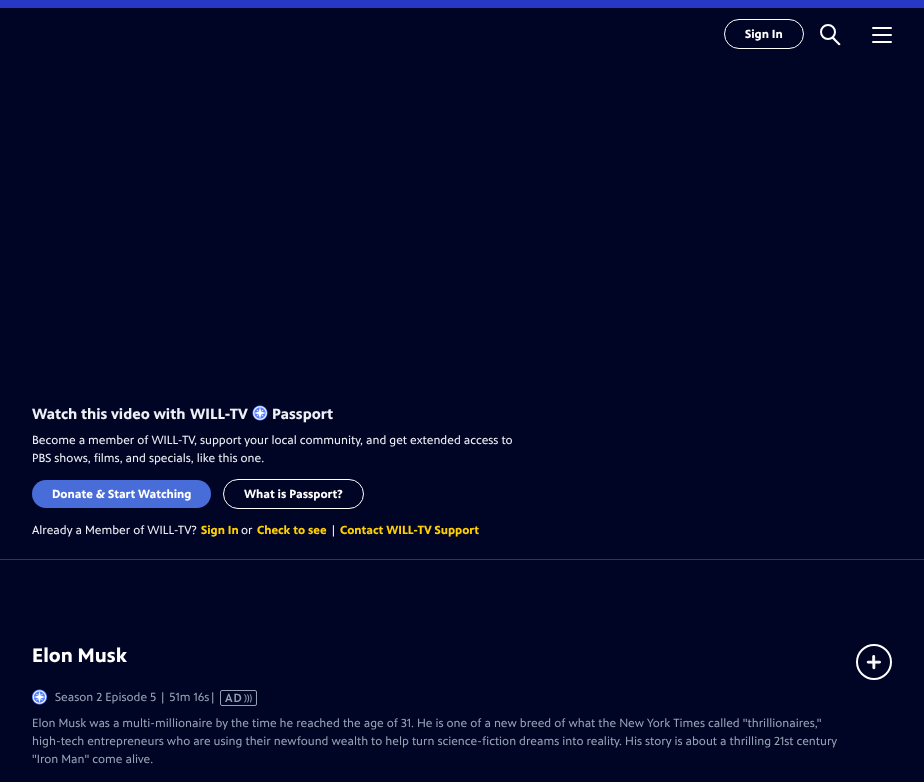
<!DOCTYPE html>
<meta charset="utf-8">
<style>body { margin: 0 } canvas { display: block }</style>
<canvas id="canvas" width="924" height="782"></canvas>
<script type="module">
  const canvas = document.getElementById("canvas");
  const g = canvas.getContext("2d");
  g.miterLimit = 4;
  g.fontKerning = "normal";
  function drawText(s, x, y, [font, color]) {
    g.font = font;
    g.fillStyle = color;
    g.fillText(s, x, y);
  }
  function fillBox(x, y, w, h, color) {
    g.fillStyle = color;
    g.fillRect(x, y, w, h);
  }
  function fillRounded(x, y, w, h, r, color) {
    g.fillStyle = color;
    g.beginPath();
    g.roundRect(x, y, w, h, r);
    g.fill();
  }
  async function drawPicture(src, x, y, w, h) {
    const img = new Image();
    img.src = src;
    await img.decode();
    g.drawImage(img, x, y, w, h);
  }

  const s1 = ["bold 12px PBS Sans", "#FFFFFF"];
  const s2 = ["bold 15.25px PBS Sans", "#EEF0F5"];
  const s3 = ["12px PBS Sans", "#EEF0F5"];
  const s4 = ["bold 12px PBS Sans", "#FFCF00"];
  const s5 = ["bold 20px PBS Sans", "#FFFFFF"];
  const s6 = ["12px PBS Sans", "#94A1B2"];
  const s7 = ["500 12px PBS Sans", "#94A1B2"];

  fillBox(0, 0, 924, 782, "#000525");
  fillBox(0, 0, 924, 8, "#2638C4");
  g.beginPath();
  g.roundRect(724.5, 19.5, 79, 29, 14.5);
  g.strokeStyle = "#FFFFFF";
  g.stroke();
  drawText("Sign In", 745, 38, s1);
  g.beginPath();
  g.arc(828, 32, 7, 0, Math.PI * 2);
  g.lineWidth = 2;
  g.stroke();
  g.beginPath();
  g.moveTo(838.5, 45);
  g.lineTo(831.5, 38);
  g.lineTo(832, 37);
  g.bezierCurveTo(833, 35.5, 835, 38.5, 835.5, 39);
  g.lineTo(840.5, 44);
  g.bezierCurveTo(840.5, 45, 839.5, 45.5, 838.5, 45);
  g.closePath();
  g.fill();
  fillRounded(872, 27, 20, 2, 1, "#FFFFFF");
  fillRounded(872, 34, 20, 2, 1, "#FFFFFF");
  fillRounded(872, 41, 20, 2, 1, "#FFFFFF");
  fillBox(0, 559, 924, 1, "#2E3A55");
  drawText("Watch this video with", 32, 419, s2);
  drawText("WILL-TV", 190, 419, s2);
  await drawPicture("pic1.png", 252, 405, 16, 16);
  drawText("Passport", 272, 419, s2);
  drawText("Become a member of WILL-TV", 32, 444, s3);
  drawText(", support your local community, and get extended access to", 194, 444, s3);
  drawText("PBS shows, films, and specials, like this one.", 32, 462, s3);
  fillRounded(32, 480, 179, 28, 14, "#486CD8");
  drawText("Donate & Start Watching", 52, 498, s1);
  g.beginPath();
  g.roundRect(223.5, 479.5, 140, 29, 14.5);
  g.lineWidth = 1;
  g.stroke();
  drawText("What is Passport?", 244, 498, s1);
  drawText("Already a Member of WILL-TV?", 32, 534, s3);
  drawText("Sign In", 201, 534, s4);
  drawText("or", 241, 534, s3);
  drawText("Check to see", 257, 534, s4);
  drawText("|", 330, 534, s3);
  drawText("Contact WILL-TV Support", 340, 534, s4);
  drawText("Elon Musk", 32, 662, s5);
  g.beginPath();
  g.arc(874, 662, 17, 0, Math.PI * 2);
  g.lineWidth = 2;
  g.stroke();
  await drawPicture("pic2.png", 866, 655, 15, 15);
  await drawPicture("pic3.png", 32, 689, 15, 16);
  drawText("Season 2 Episode 5 | 51m 16s|", 55, 701, s6);
  g.beginPath();
  g.roundRect(220.5, 690.5, 36, 15, 1.5);
  g.strokeStyle = "#94A1B2";
  g.lineWidth = 1;
  g.stroke();
  g.letterSpacing = "1px";
  drawText("AD", 225, 702, s7);
  await drawPicture("pic4.png", 244, 694, 8, 9);
  g.letterSpacing = "0px";
  drawText("Elon Musk was a multi-millionaire by the time he reached the age of 31. He is one of a new breed of what the New York Times called \"thrillionaires,\"", 32, 727, s6);
  drawText("high-tech entrepreneurs who are using their newfound wealth to help turn science-fiction dreams into reality. His story is about a thrilling 21st century", 32, 745, s6);
  drawText("\"Iron Man\" come alive.", 32, 763, s6);
</script>
